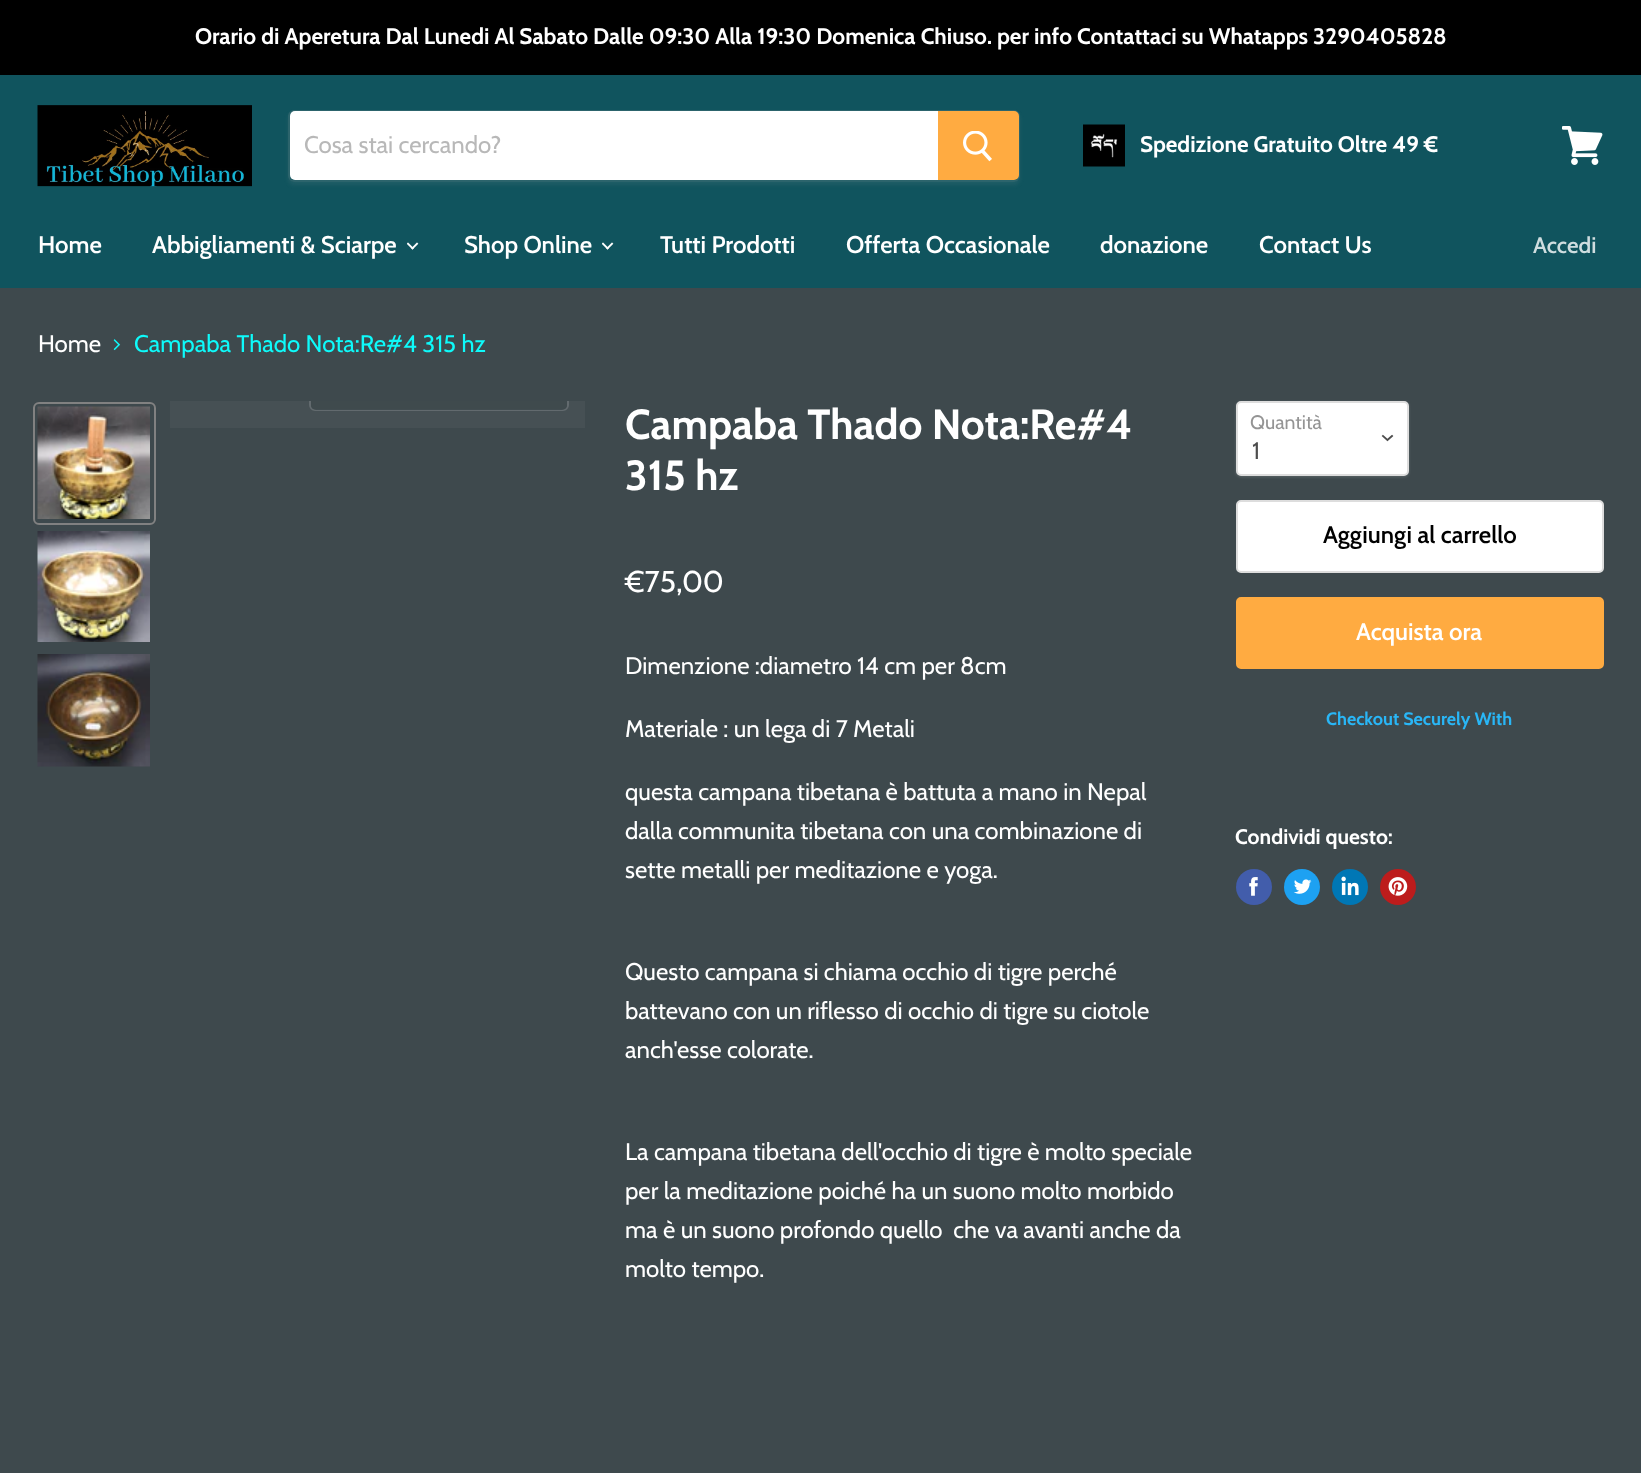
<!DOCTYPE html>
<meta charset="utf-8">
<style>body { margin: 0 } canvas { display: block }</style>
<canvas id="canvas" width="1641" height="1473"></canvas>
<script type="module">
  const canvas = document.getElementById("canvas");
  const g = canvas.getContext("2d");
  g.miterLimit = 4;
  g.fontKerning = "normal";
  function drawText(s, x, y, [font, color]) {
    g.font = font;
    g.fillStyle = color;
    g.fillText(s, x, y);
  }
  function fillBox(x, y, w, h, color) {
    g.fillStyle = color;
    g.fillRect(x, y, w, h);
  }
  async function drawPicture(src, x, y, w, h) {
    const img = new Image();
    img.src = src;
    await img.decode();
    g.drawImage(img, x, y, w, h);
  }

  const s1 = ["bold 22.5px Cabin", "#FFFFFF"];
  const s2 = ["24px Cabin", "#B8B8B8"];
  const s3 = ["600 24px Cabin", "#FFFFFF"];
  const s4 = ["600 22.5px Cabin", "#CFDDDF"];
  const s5 = ["24px Cabin", "#FFFFFF"];
  const s6 = ["24px Cabin", "#0EFAFA"];
  const s7 = ["bold 42px Cabin", "#FFFFFF"];
  const s8 = ["30px Cabin", "#FFFFFF"];
  const s9 = ["19.5px Cabin", "#949494"];
  const s10 = ["24px Cabin", "#4D4D4D"];
  const s11 = ["600 24px Cabin", "#000000"];
  const s12 = ["bold 18px Cabin", "#29B6F6"];
  const s13 = ["bold 21px Cabin", "#FFFFFF"];

  fillBox(0, 0, 1641, 1473, "#3E494D");
  fillBox(0, 0, 1641, 75, "#000000");
  drawText("Orario di Aperetura Dal Lunedi Al Sabato Dalle 09:30 Alla 19:30 Domenica Chiuso. per info Contattaci su Whatapps 3290405828", 195, 44, s1);
  fillBox(0, 75, 1641, 213, "#10545E");
  await drawPicture("pic1.png", 37, 105, 215, 82);
  g.save();
  g.beginPath();
  g.moveTo(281, 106);
  g.lineTo(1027, 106);
  g.lineTo(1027, 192);
  g.lineTo(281, 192);
  g.closePath();
  g.moveTo(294, 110);
  g.lineTo(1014, 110);
  g.bezierCurveTo(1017.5, 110, 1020, 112.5, 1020, 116);
  g.lineTo(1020, 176);
  g.bezierCurveTo(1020, 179.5, 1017.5, 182, 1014, 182);
  g.lineTo(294, 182);
  g.bezierCurveTo(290.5, 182, 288, 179.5, 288, 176);
  g.lineTo(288, 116);
  g.bezierCurveTo(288, 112.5, 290.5, 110, 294, 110);
  g.closePath();
  g.clip("evenodd");
  g.fillStyle = "rgba(159, 164, 166, 0.11)";
  g.filter = "blur(2px)";
  g.beginPath();
  g.roundRect(288, 113, 732, 72, 6);
  g.fill();
  g.filter = "none";
  g.restore();
  g.beginPath();
  g.roundRect(289, 111, 730, 70, 5);
  g.strokeStyle = "rgba(159, 164, 166, 0.2)";
  g.lineWidth = 2;
  g.stroke();
  g.fillStyle = "#FFFFFF";
  g.beginPath();
  g.roundRect(290, 111, 648, 69, [5, 0, 0, 5]);
  g.fill();
  drawText("Cosa stai cercando?", 304, 153, s2);
  g.fillStyle = "#FFAB41";
  g.beginPath();
  g.roundRect(939, 112, 79, 67, [0, 4, 4, 0]);
  g.fill();
  g.strokeStyle = "#FFAB41";
  g.stroke();
  await drawPicture("pic2.png", 963, 131, 29, 31);
  await drawPicture("pic3.png", 1083, 124, 42, 43);
  drawText("Spedizione Gratuito Oltre 49 €", 1140, 152, s1);
  await drawPicture("pic4.png", 1562, 126, 41, 39);
  drawText("Home", 38, 253, s3);
  drawText("Abbigliamenti & Sciarpe", 152, 253, s3);
  await drawPicture("pic5.png", 407, 242, 12, 8);
  drawText("Shop Online", 464, 253, s3);
  await drawPicture("pic5.png", 602, 242, 12, 8);
  drawText("Tutti Prodotti", 660, 253, s3);
  drawText("Offerta Occasionale", 846, 253, s3);
  drawText("donazione", 1100, 253, s3);
  drawText("Contact Us", 1259, 253, s3);
  drawText("Accedi", 1533, 253, s4);
  drawText("Home", 38, 352, s5);
  await drawPicture("pic6.png", 113, 339, 8, 12);
  drawText("Campaba Thado Nota:Re#4 315 hz", 134, 352, s6);
  g.beginPath();
  g.roundRect(34, 403, 121, 121, 5);
  g.strokeStyle = "#818181";
  g.stroke();
  await drawPicture("pic7.png", 37, 406, 113, 113);
  await drawPicture("pic8.png", 37, 531, 113, 111);
  await drawPicture("pic9.png", 37, 654, 113, 113);
  fillBox(170, 401, 415, 27, "#465054");
  g.save();
  g.beginPath();
  g.rect(170, 401, 415, 27);
  g.clip();
  g.beginPath();
  g.roundRect(310, 367, 258, 43, 5);
  g.strokeStyle = "#626A6E";
  g.stroke();
  g.restore();
  g.fillStyle = "rgba(62, 73, 77, 0.9)";
  g.beginPath();
  g.roundRect(311, 401, 256, 9, [0, 0, 5, 5]);
  g.fill();
  drawText("Campaba Thado Nota:Re#4", 625, 439, s7);
  drawText("315 hz", 625, 490, s7);
  drawText("€75,00", 625, 592, s8);
  drawText("Dimenzione :diametro 14 cm per 8cm", 625, 674, s5);
  drawText("Materiale : un lega di 7 Metali", 625, 737, s5);
  drawText("questa campana tibetana è battuta a mano in Nepal", 625, 800, s5);
  drawText("dalla communita tibetana con una combinazione di", 625, 839, s5);
  drawText("sette metalli per meditazione e yoga.", 625, 878, s5);
  drawText("Questo campana si chiama occhio di tigre perché", 625, 980, s5);
  drawText("battevano con un riflesso di occhio di tigre su ciotole", 625, 1019, s5);
  drawText("anch'esse colorate.", 625, 1058, s5);
  drawText("La campana tibetana dell'occhio di tigre è molto speciale", 625, 1160, s5);
  drawText("per la meditazione poiché ha un suono molto morbido", 625, 1199, s5);
  drawText("ma è un suono profondo quello  che va avanti anche da", 625, 1238, s5);
  drawText("molto tempo.", 625, 1277, s5);
  g.fillStyle = "rgba(255, 255, 255, 0.15)";
  g.filter = "blur(1.5px)";
  g.beginPath();
  g.roundRect(1236, 402, 173, 75, 5);
  g.fill();
  g.filter = "none";
  g.fillStyle = "#FFFFFF";
  g.beginPath();
  g.roundRect(1237, 402, 171, 73, 4);
  g.fill();
  g.strokeStyle = "#DDDDDD";
  g.stroke();
  drawText("Quantità", 1250, 429, s9);
  g.beginPath();
  g.moveTo(1387.5, 440);
  g.lineTo(1392, 436);
  g.moveTo(1387.5, 440);
  g.lineTo(1383, 436);
  g.strokeStyle = "#4D4D4D";
  g.lineWidth = 1.9;
  g.lineCap = "square";
  g.stroke();
  drawText("1", 1252, 459, s10);
  g.fillStyle = "#FFFFFF";
  g.beginPath();
  g.roundRect(1237, 501, 366, 71, 4);
  g.fill();
  g.strokeStyle = "#DDDDDD";
  g.lineWidth = 2;
  g.stroke();
  drawText("Aggiungi al carrello", 1323, 543, s11);
  g.fillStyle = "#FFAB41";
  g.beginPath();
  g.roundRect(1237, 598, 366, 70, 4);
  g.fill();
  g.strokeStyle = "#FFAB41";
  g.stroke();
  drawText("Acquista ora", 1356, 640, s3);
  drawText("Checkout Securely With", 1326, 725, s12);
  drawText("Condividi questo:", 1235, 844, s13);
  g.fillStyle = "#425DAB";
  g.beginPath();
  g.arc(1254, 887, 18, 0, Math.PI * 2);
  g.fill();
  await drawPicture("pic10.png", 1249, 877, 9, 19);
  g.fillStyle = "#1DA1F2";
  g.beginPath();
  g.arc(1302, 887, 18, 0, Math.PI * 2);
  g.fill();
  await drawPicture("pic11.png", 1293, 879, 19, 15);
  g.fillStyle = "#0077B5";
  g.beginPath();
  g.arc(1350, 887, 18, 0, Math.PI * 2);
  g.fill();
  await drawPicture("pic12.png", 1341, 876, 18, 20);
  g.fillStyle = "#BD1C1C";
  g.beginPath();
  g.arc(1398, 887, 18, 0, Math.PI * 2);
  g.fill();
  await drawPicture("pic13.png", 1388, 877, 20, 19);
</script>
